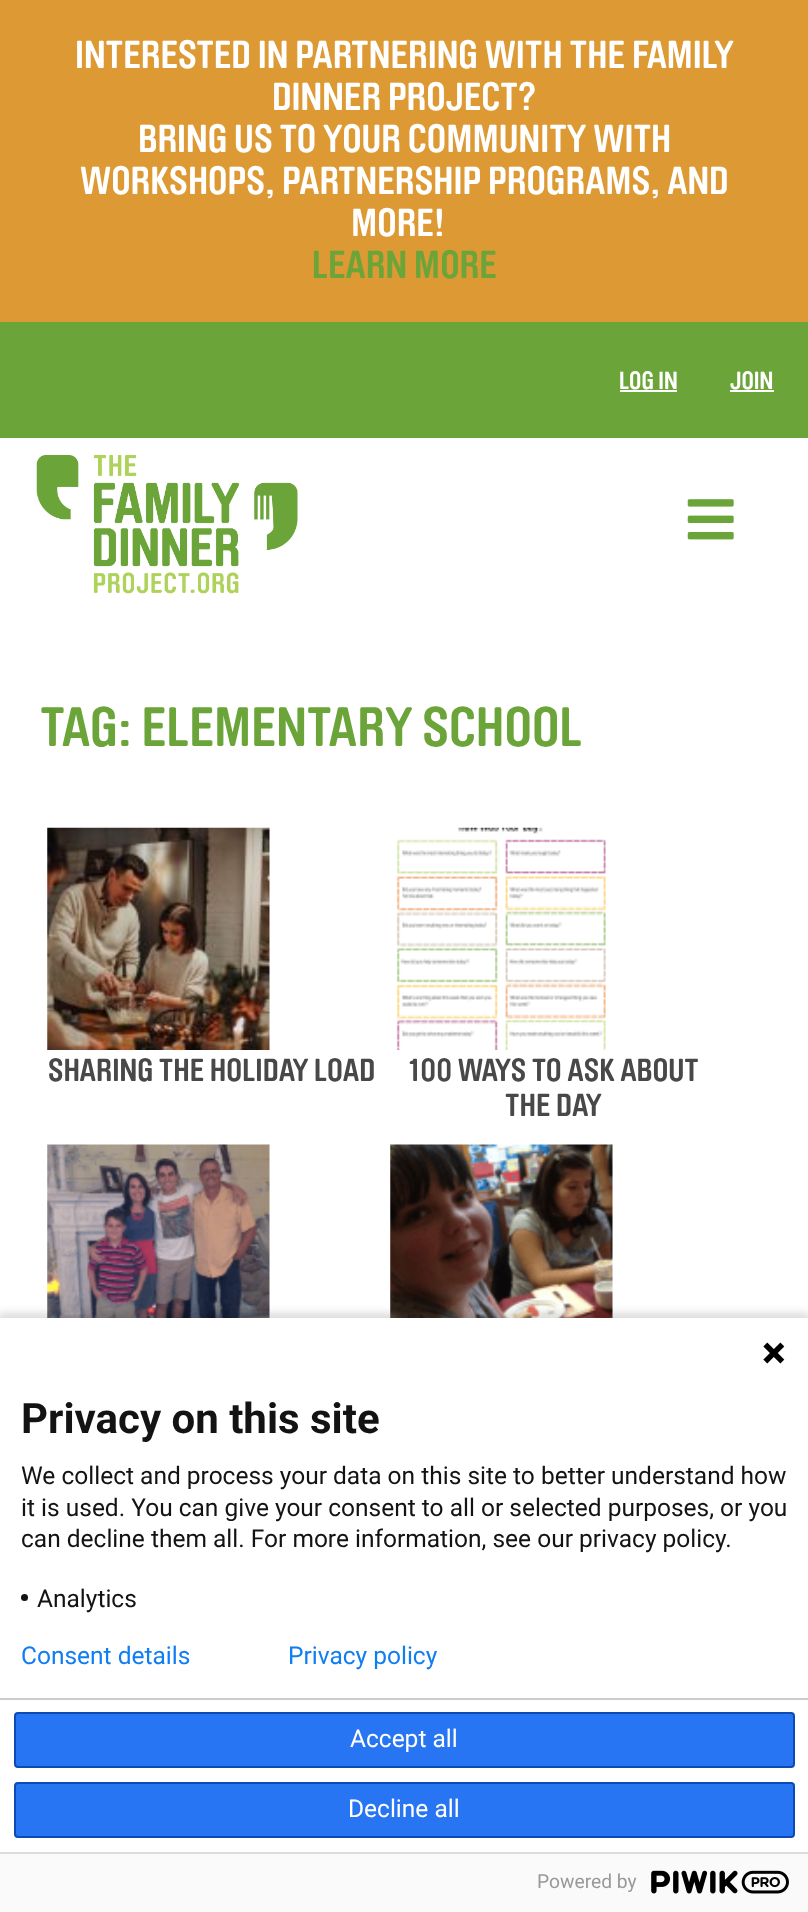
<!DOCTYPE html>
<meta charset="utf-8">
<style>body { margin: 0 } canvas { display: block }</style>
<canvas id="canvas" width="808" height="1912"></canvas>
<script type="module">
  const canvas = document.getElementById("canvas");
  const g = canvas.getContext("2d");
  g.miterLimit = 4;
  g.fontKerning = "normal";
  function drawText(s, x, y, [font, color]) {
    g.font = font;
    g.fillStyle = color;
    g.fillText(s, x, y);
  }
  function fillBox(x, y, w, h, color) {
    g.fillStyle = color;
    g.fillRect(x, y, w, h);
  }
  async function drawPicture(src, x, y, w, h) {
    const img = new Image();
    img.src = src;
    await img.decode();
    g.drawImage(img, x, y, w, h);
  }

  const s1 = ["38.5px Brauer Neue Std", "#FFFFFF"];
  const s2 = ["38.5px Brauer Neue Std", "#6BA539"];
  const s3 = ["24.5px Brauer Neue Std", "#FFFFFF"];
  const s4 = ["54.5px Brauer Neue Std", "#6BA539"];
  const s5 = ["31.5px Brauer Neue Std", "#484848"];
  const s6 = ["bold 42px Roboto", "#131313"];
  const s7 = ["24.5px Roboto", "#131313"];
  const s8 = ["24.5px Roboto", "#FFFFFF"];
  const s9 = ["24.5px Roboto", "#107EF1"];
  const s10 = ["19.25px Roboto", "#999999"];

  fillBox(0, 0, 808, 1912, "#FFFFFF");
  fillBox(0, 0, 808, 322, "#DD9933");
  drawText("INTERESTED IN PARTNERING WITH THE FAMILY", 75, 68, s1);
  drawText("DINNER PROJECT?", 272, 110, s1);
  drawText("BRING US TO YOUR COMMUNITY WITH", 138, 152, s1);
  drawText("WORKSHOPS, PARTNERSHIP PROGRAMS, AND", 80, 194, s1);
  drawText("MORE!", 351, 236, s1);
  drawText("LEARN MORE", 312, 278, s2);
  fillBox(0, 322, 808, 116, "#6BA539");
  drawText("LOG IN", 619, 389, s3);
  fillBox(620, 390, 57, 2, "#FFFFFF");
  drawText("JOIN", 730, 389, s3);
  fillBox(730, 390, 44, 2, "#FFFFFF");
  await drawPicture("pic1.png", 36, 455, 262, 139);
  await drawPicture("pic2.png", 687, 499, 47, 41);
  drawText("TAG: ELEMENTARY SCHOOL", 40, 746, s4);
  await drawPicture("pic3.png", 47, 827, 223, 223);
  drawText("SHARING THE HOLIDAY LOAD", 48, 1081, s5);
  await drawPicture("pic4.png", 396, 827, 210, 223);
  drawText("100 WAYS TO ASK ABOUT", 408, 1081, s5);
  drawText("THE DAY", 505, 1116, s5);
  await drawPicture("pic5.png", 47, 1144, 223, 174);
  await drawPicture("pic6.png", 390, 1144, 223, 174);
  g.fillStyle = "rgba(0, 0, 0, 0.14)";
  g.filter = "blur(4.5px)";
  g.beginPath();
  g.rect(-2, 1313, 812, 598);
  g.fill();
  g.filter = "none";
  fillBox(0, 1318, 808, 534, "#FFFFFF");
  await drawPicture("pic7.png", 763, 1342, 22, 22);
  drawText("Privacy on this site", 21, 1433, s6);
  drawText("We collect and process your data on this site to better understand how", 21, 1484, s7);
  drawText("it is used. You can give your consent to all or selected purposes, or you", 21, 1516, s7);
  drawText("can decline them all. For more information, see our privacy policy.", 21, 1547, s7);
  g.beginPath();
  g.arc(24.5, 1597.5, 3.5, 0, Math.PI * 2);
  g.fill();
  drawText("Analytics", 37, 1607, s7);
  fillBox(0, 1698, 808, 2, "#CCCCCC");
  g.fillStyle = "#2775F2";
  g.beginPath();
  g.roundRect(15, 1713, 779, 54, 3);
  g.fill();
  g.strokeStyle = "#0B4BB3";
  g.lineWidth = 2;
  g.stroke();
  drawText("Accept all", 350, 1747, s8);
  g.fillStyle = "#2775F2";
  g.beginPath();
  g.roundRect(15, 1783, 779, 54, 3);
  g.fill();
  g.stroke();
  drawText("Decline all", 348, 1817, s8);
  drawText("Consent details", 21, 1664, s9);
  drawText("Privacy policy", 288, 1664, s9);
  fillBox(0, 1854, 808, 58, "#FAFAFA");
  fillBox(0, 1852, 808, 2, "#DDDDDD");
  drawText("Powered by", 537, 1888, s10);
  await drawPicture("pic8.png", 651, 1870, 138, 24);
</script>
